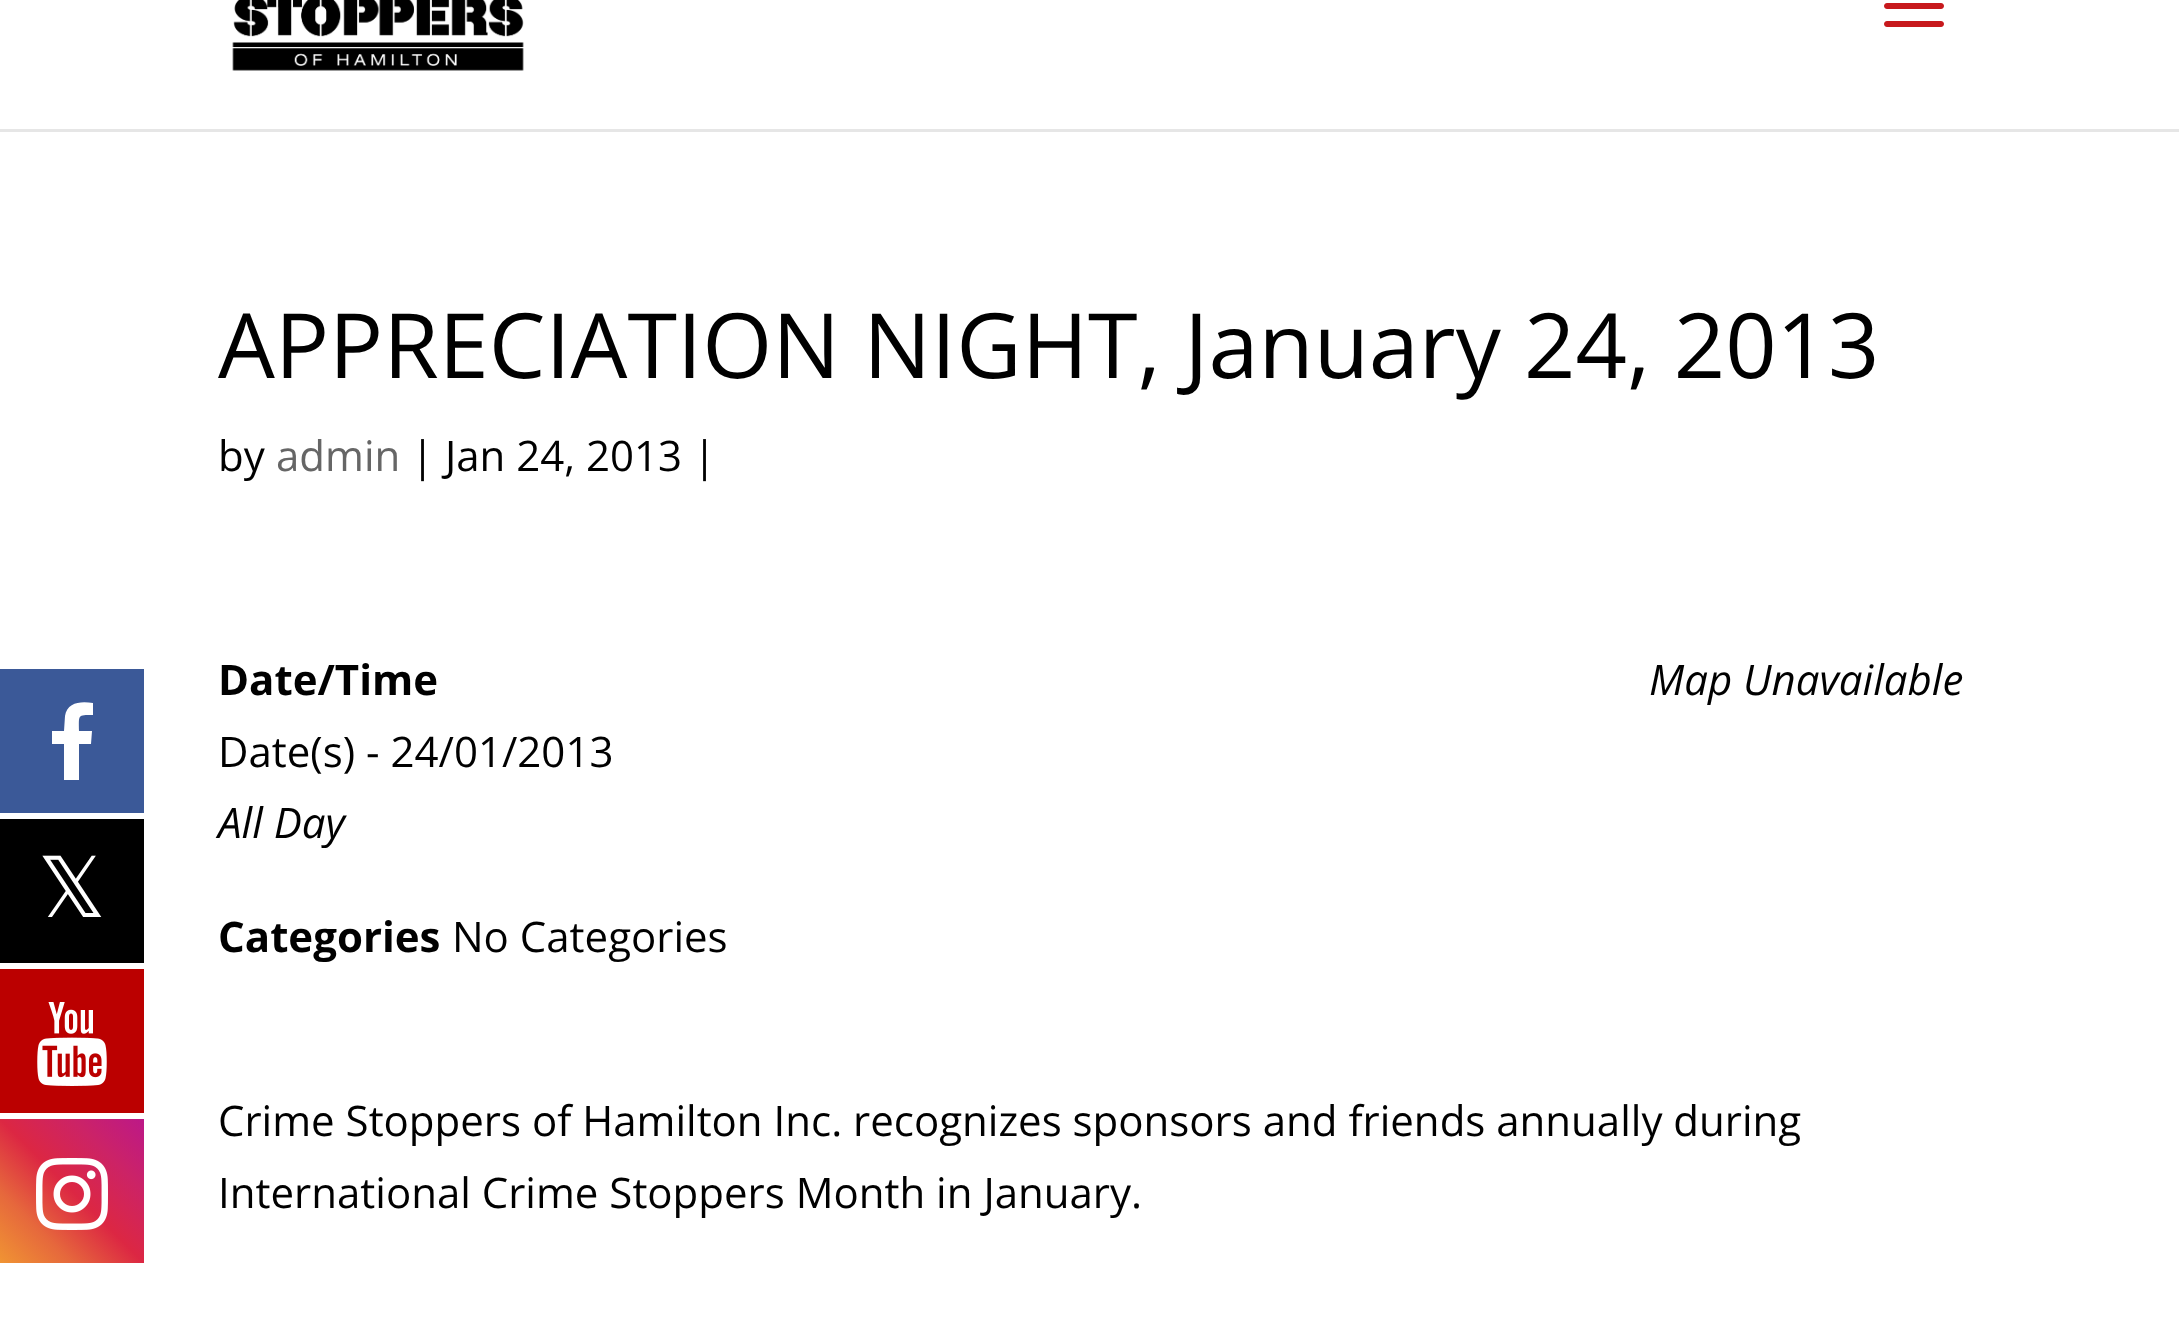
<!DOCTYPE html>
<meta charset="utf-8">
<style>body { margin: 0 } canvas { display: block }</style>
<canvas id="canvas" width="2179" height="1322"></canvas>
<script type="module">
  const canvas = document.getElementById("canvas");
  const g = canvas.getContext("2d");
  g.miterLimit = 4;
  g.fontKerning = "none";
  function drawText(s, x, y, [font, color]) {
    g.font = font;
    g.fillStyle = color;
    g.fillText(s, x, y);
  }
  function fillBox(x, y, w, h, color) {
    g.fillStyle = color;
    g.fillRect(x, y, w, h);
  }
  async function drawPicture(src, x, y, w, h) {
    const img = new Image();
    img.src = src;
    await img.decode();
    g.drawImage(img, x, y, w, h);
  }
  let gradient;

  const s1 = ["84px DejaVu Sans", "#FFFFFF"];
  const s2 = ["90px Open Sans", "#000000"];
  const s3 = ["42px Open Sans", "#000000"];
  const s4 = ["42px Open Sans", "#666666"];
  const s5 = ["bold 42px Open Sans", "#000000"];
  const s6 = ["italic 42px Open Sans", "#000000"];

  fillBox(0, 0, 2179, 1322, "#FFFFFF");
  fillBox(0, 669, 144, 144, "#3B5998");
  g.fillStyle = "#FFFFFF";
  g.beginPath();
  g.moveTo(93, 703);
  g.lineTo(93, 715);
  g.bezierCurveTo(77, 715, 79, 715, 79, 731);
  g.lineTo(92, 731);
  g.lineTo(91, 744);
  g.lineTo(79, 744);
  g.lineTo(79, 780);
  g.lineTo(64, 780);
  g.lineTo(64, 744);
  g.lineTo(52, 744);
  g.lineTo(52, 731);
  g.lineTo(64, 731);
  g.lineTo(65, 716);
  g.bezierCurveTo(67, 702, 81, 701, 93, 703);
  g.closePath();
  g.fill();
  fillBox(0, 819, 144, 144, "#000000");
  drawText("𝕏", 38, 917, s1);
  fillBox(0, 969, 144, 144, "#BB0000");
  await drawPicture("pic1.png", 37, 1002, 70, 84);
  gradient = g.createLinearGradient(0, 1263, 144, 1119);
  gradient.addColorStop(0, "#F09433");
  gradient.addColorStop(0.25, "#E6683C");
  gradient.addColorStop(0.5, "#DC2743");
  gradient.addColorStop(0.75, "#CC2366");
  gradient.addColorStop(1, "#BC1888");
  g.fillStyle = gradient;
  g.fillRect(0, 1119, 144, 144);
  await drawPicture("pic2.png", 36, 1158, 72, 72);
  fillBox(0, 129, 2179, 3, "#E6E6E6");
  await drawPicture("pic3.png", 232, 0, 292, 71);
  await drawPicture("pic4.png", 1884, 3, 60, 24);
  drawText("APPRECIATION NIGHT, January 24, 2013", 218, 378, s2);
  drawText("by", 218, 471, s3);
  drawText("admin", 276, 471, s4);
  drawText("| Jan 24, 2013 |", 411, 471, s3);
  drawText("Date/Time", 218, 695, s5);
  drawText("Date(s) - 24/01/2013", 218, 767, s3);
  drawText("All Day", 218, 838, s6);
  drawText("Map Unavailable", 1649, 695, s6);
  drawText("Categories", 218, 952, s5);
  drawText("No Categories", 452, 952, s3);
  drawText("Crime Stoppers of Hamilton Inc. recognizes sponsors and friends annually during", 218, 1136, s3);
  drawText("International Crime Stoppers Month in January.", 218, 1208, s3);
</script>
